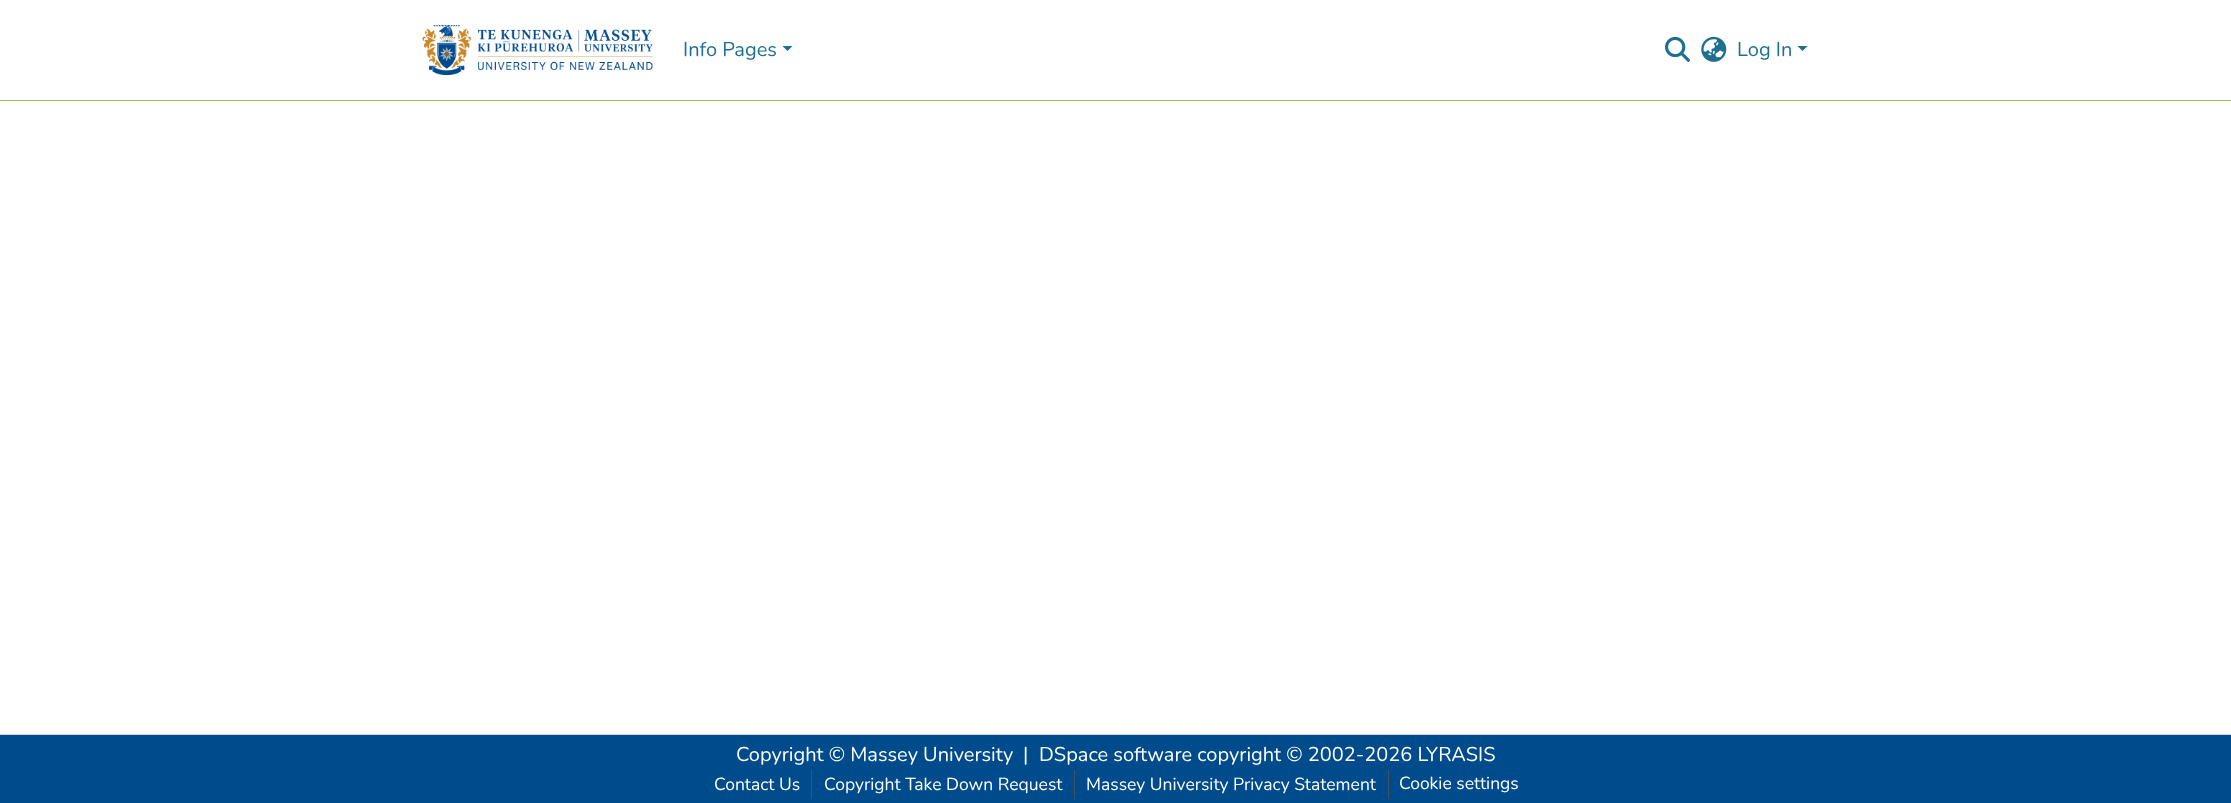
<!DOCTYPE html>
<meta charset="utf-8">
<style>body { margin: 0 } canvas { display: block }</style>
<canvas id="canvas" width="2231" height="803"></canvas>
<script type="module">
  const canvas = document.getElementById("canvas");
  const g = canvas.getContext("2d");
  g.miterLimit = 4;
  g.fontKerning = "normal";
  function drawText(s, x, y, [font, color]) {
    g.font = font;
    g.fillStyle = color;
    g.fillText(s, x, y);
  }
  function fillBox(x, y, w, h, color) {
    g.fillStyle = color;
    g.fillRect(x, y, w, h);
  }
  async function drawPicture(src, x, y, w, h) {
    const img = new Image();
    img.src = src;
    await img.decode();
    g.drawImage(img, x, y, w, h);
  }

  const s1 = ["20px Nunito", "#1E6F90"];
  const s2 = ["20px Nunito", "#FFFFFF"];
  const s3 = ["17.5px Nunito", "#FFFFFF"];

  fillBox(0, 0, 2231, 803, "#FFFFFF");
  fillBox(0, 100, 2231, 1, "#92C642");
  await drawPicture("pic1.png", 422, 25, 231, 50);
  drawText("Info Pages", 683, 56, s1);
  g.beginPath();
  g.moveTo(782.5, 46);
  g.lineTo(792.5, 46);
  g.lineTo(787.5, 51);
  g.closePath();
  g.fill();
  await drawPicture("pic2.png", 1665, 36, 25, 26);
  await drawPicture("pic3.png", 1701, 36, 26, 26);
  drawText("Log In", 1737, 56, s1);
  g.beginPath();
  g.moveTo(1797.5, 46);
  g.lineTo(1807.5, 46);
  g.lineTo(1802.5, 51);
  g.closePath();
  g.fill();
  fillBox(0, 735, 2231, 68, "#004B8C");
  fillBox(0, 734, 2231, 1, "#CED4DA");
  drawText("Copyright © Massey University", 736, 761, s2);
  drawText("|", 1023, 761, s2);
  drawText("DSpace software copyright © 2002-2026 LYRASIS", 1039, 761, s2);
  drawText("Contact Us", 714, 790, s3);
  fillBox(811, 770, 1, 29, "#495057");
  drawText("Copyright Take Down Request", 824, 790, s3);
  fillBox(1074, 770, 1, 29, "#495057");
  drawText("Massey University Privacy Statement", 1086, 790, s3);
  fillBox(1388, 770, 1, 29, "#495057");
  drawText("Cookie settings", 1399, 789, s3);
</script>
